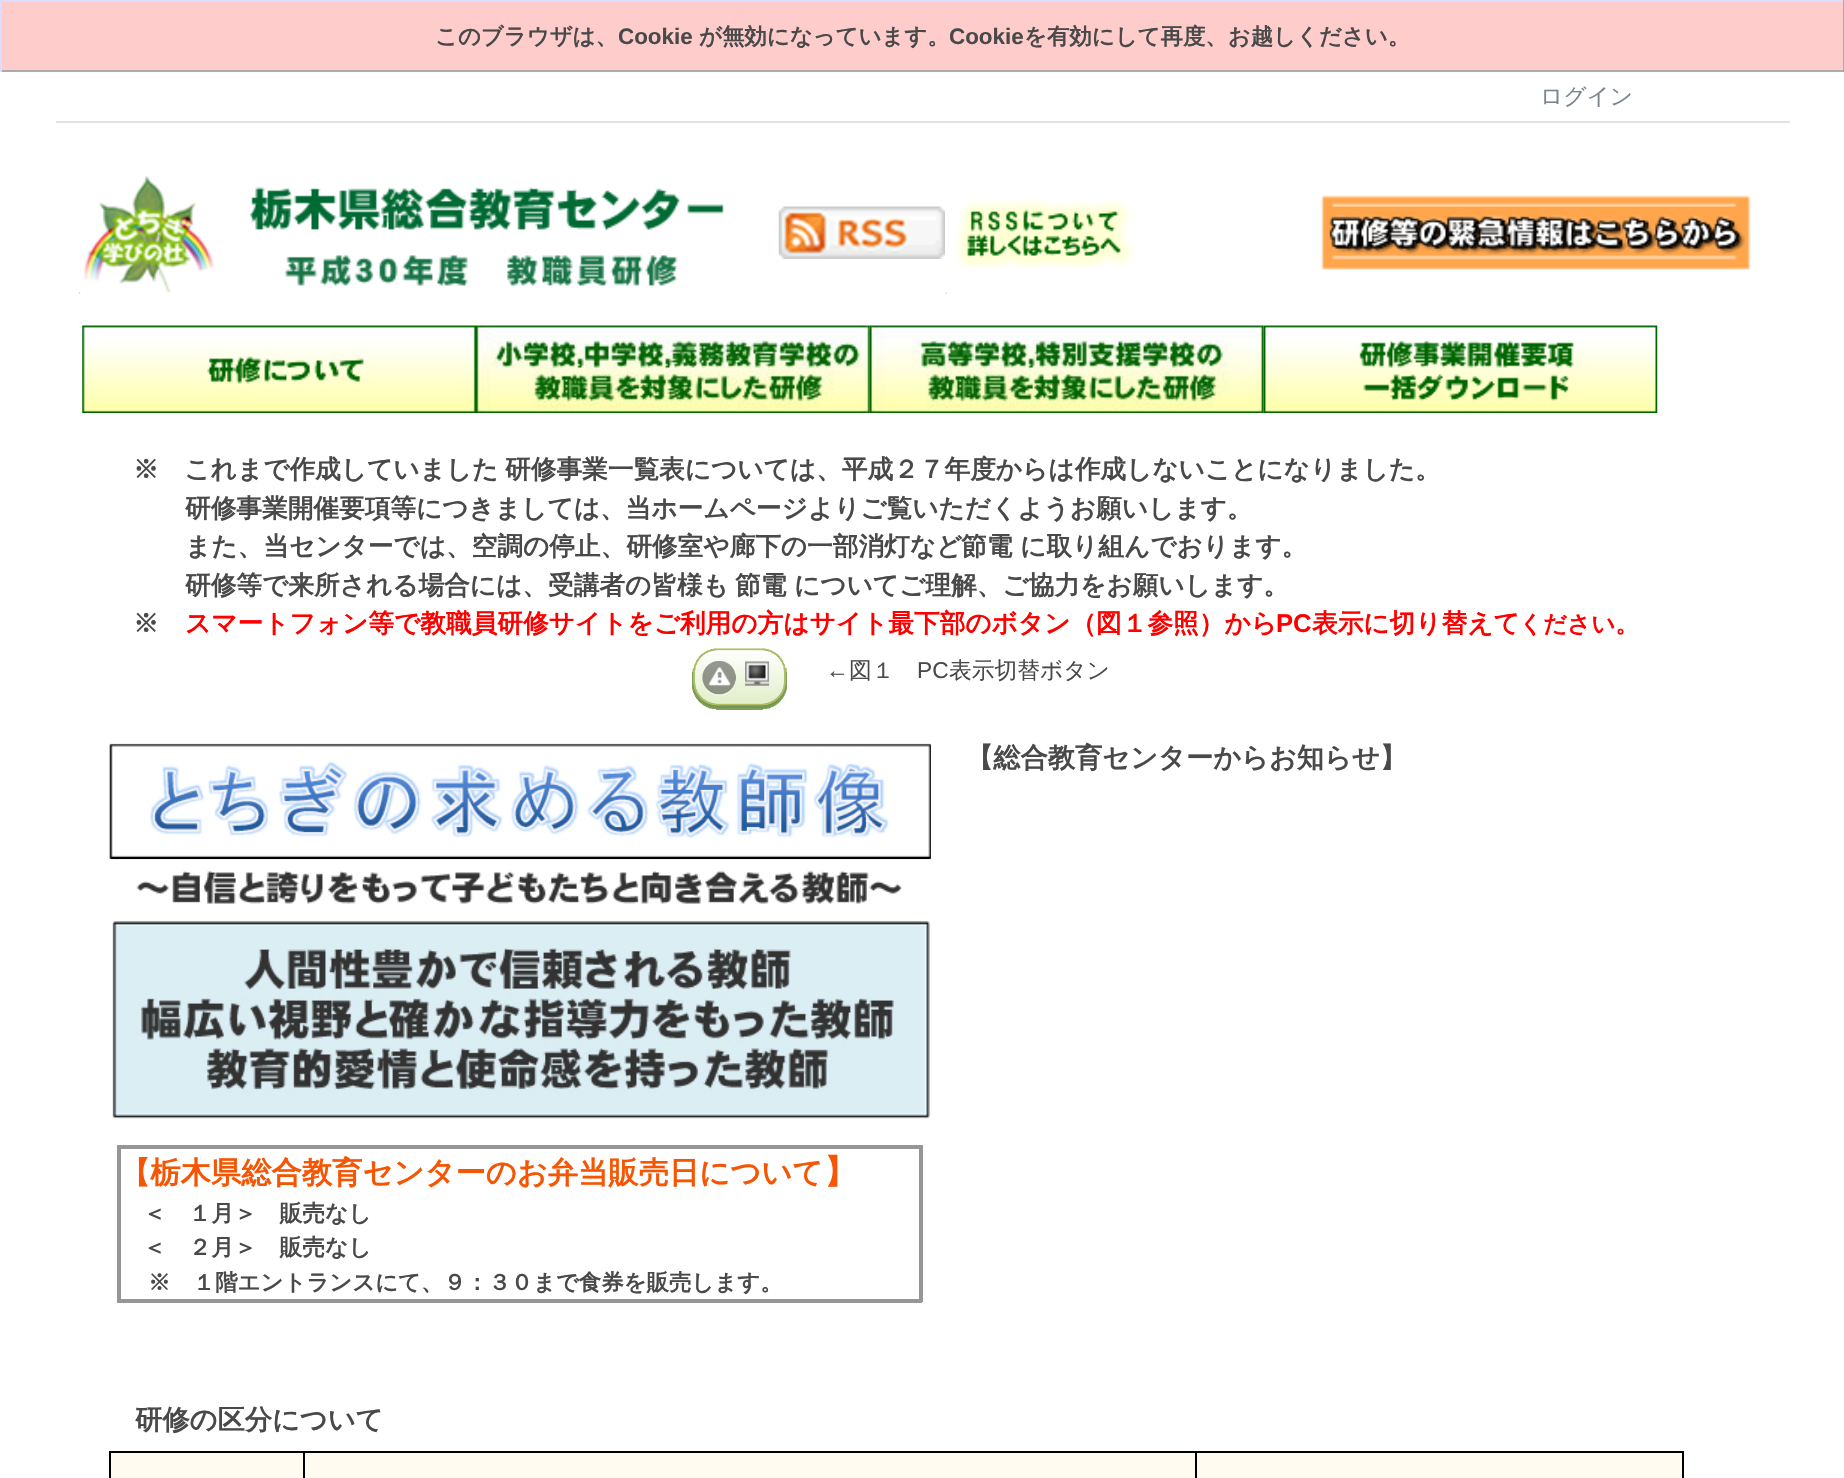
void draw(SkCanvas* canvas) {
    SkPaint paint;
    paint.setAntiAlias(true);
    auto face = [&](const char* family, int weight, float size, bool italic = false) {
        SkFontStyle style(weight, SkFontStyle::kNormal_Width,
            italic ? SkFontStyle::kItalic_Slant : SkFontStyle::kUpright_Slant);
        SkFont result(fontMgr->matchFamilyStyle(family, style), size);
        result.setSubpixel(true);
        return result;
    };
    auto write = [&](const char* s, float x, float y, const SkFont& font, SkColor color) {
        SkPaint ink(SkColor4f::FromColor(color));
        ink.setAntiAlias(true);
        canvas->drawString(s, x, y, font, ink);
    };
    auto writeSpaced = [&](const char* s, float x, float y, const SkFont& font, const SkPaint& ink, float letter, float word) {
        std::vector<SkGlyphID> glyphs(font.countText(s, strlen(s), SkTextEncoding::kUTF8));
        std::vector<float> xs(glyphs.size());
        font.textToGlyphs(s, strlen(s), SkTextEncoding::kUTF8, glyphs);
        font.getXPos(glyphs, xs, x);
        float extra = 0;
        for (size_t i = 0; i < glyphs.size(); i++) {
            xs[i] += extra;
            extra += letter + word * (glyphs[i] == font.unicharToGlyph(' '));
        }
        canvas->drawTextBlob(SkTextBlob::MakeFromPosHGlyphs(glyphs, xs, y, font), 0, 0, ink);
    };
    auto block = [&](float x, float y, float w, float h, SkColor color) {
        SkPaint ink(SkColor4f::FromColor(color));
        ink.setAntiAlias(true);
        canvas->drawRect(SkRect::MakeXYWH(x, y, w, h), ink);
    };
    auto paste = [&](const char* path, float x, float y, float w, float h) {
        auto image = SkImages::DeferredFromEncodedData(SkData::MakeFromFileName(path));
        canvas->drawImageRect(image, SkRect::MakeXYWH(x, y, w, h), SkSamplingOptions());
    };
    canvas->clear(SK_ColorWHITE);
    block(2, 2, 1841, 68, SkColorSetRGB(255, 204, 204));
    block(0, 0, 1844, 2, SkColorSetRGB(221, 221, 255));
    block(1843, 0, 1, 72, SkColorSetRGB(170, 170, 170));
    block(0, 70, 1844, 2, SkColorSetRGB(170, 170, 170));
    block(0, 0, 2, 72, SkColorSetRGB(221, 221, 255));
    auto kFont1 = face("WenQuanYi Zen Hei", 700, 22.4f);
    write("このブラウザは、", 435, 44, kFont1, SkColorSetRGB(73, 73, 73));
    auto kFont2 = face("Liberation Sans", 700, 22.4f);
    write("Cookie", 618, 44, kFont2, SkColorSetRGB(73, 73, 73));
    write("が無効になっています。", 699, 44, kFont1, SkColorSetRGB(73, 73, 73));
    write("Cookie", 949, 44, kFont2, SkColorSetRGB(73, 73, 73));
    write("を有効にして再度、お越しください。", 1024, 44, kFont1, SkColorSetRGB(73, 73, 73));
    block(56, 121, 1734, 2, SkColorSetRGB(223, 228, 231));
    auto kFont3 = face("WenQuanYi Zen Hei", 500, 22.75f);
    write("ログイン", 1540, 104, kFont3, SkColorSetRGB(122, 133, 143));
    paste("pic1.png", 78, 292, 3, 2);
    paste("pic2.png", 83, 175, 641, 118);
    paste("pic3.png", 778, 206, 167, 53);
    paste("pic4.png", 955, 198, 179, 70);
    paste("pic5.png", 945, 292, 2, 2);
    paste("pic6.png", 1321, 195, 430, 75);
    paste("pic7.png", 82, 325, 394, 88);
    paste("pic8.png", 476, 325, 394, 88);
    paste("pic9.png", 869, 325, 395, 88);
    paste("pic10.png", 1263, 325, 395, 88);
    auto kFont4 = face("WenQuanYi Zen Hei", 700, 25.67f);
    paint.setColor(SkColorSetRGB(73, 73, 73));
    writeSpaced("※　これまで作成していました 研修事業一覧表については、平成２７年度からは作成しないことになりました。", 133, 478, kFont4, paint, 0, -1);
    write("研修事業開催要項等につきましては、当ホームページよりご覧いただくようお願いします。", 185, 517, kFont4, SkColorSetRGB(73, 73, 73));
    write("また、当センターでは、空調の停止、研修室や廊下の一部消灯など", 185, 555, kFont4, SkColorSetRGB(73, 73, 73));
    write("節電", 961, 555, kFont4, SkColorSetRGB(73, 73, 73));
    write("に取り組んでおります。", 1020, 555, kFont4, SkColorSetRGB(73, 73, 73));
    write("研修等で来所される場合には、受講者の皆様も", 185, 594, kFont4, SkColorSetRGB(73, 73, 73));
    write("節電", 735, 594, kFont4, SkColorSetRGB(73, 73, 73));
    write("についてご理解、ご協力をお願いします。", 794, 594, kFont4, SkColorSetRGB(73, 73, 73));
    write("※", 133, 632, kFont4, SkColorSetRGB(73, 73, 73));
    write("スマートフォン等で教職員研修サイトをご利用の方はサイト最下部のボタン（図１参照）から", 185, 632, kFont4, SkColorSetRGB(255, 0, 0));
    auto kFont5 = face("Liberation Sans", 700, 25.67f);
    write("PC", 1276, 632, kFont5, SkColorSetRGB(255, 0, 0));
    write("表示に切り替えて", 1312, 632, kFont4, SkColorSetRGB(255, 0, 0));
    auto kFont6 = face("WenQuanYi Zen Hei", 700, 23.5f);
    write("ください。", 1519, 632, kFont6, SkColorSetRGB(255, 0, 0));
    paste("pic11.png", 692, 648, 95, 62);
    auto kFont7 = face("Liberation Sans", 400, 22.75f);
    write("←", 826, 678, kFont7, SkColorSetRGB(73, 73, 73));
    write("図１", 849, 678, kFont3, SkColorSetRGB(73, 73, 73));
    write("PC", 917, 678, kFont7, SkColorSetRGB(73, 73, 73));
    write("表示切替ボタン", 949, 678, kFont3, SkColorSetRGB(73, 73, 73));
    auto kFont8 = face("WenQuanYi Zen Hei", 700, 27.25f);
    write("【総合教育センターからお知らせ】", 966, 767, kFont8, SkColorSetRGB(73, 73, 73));
    paste("pic12.png", 109, 743, 822, 117);
    paste("pic13.png", 109, 859, 822, 45);
    paste("pic14.png", 112, 921, 818, 198);
    block(117, 1145, 805, 4, SkColorSetRGB(150, 150, 150));
    block(919, 1145, 4, 157, SkColorSetRGB(150, 150, 150));
    block(117, 1299, 805, 4, SkColorSetRGB(150, 150, 150));
    block(117, 1145, 4, 157, SkColorSetRGB(150, 150, 150));
    auto kFont9 = face("WenQuanYi Zen Hei", 700, 30.3f);
    write("【栃木県総合教育センターのお弁当販売日について", 120, 1183, kFont9, SkColorSetRGB(246, 86, 4));
    auto kFont10 = face("WenQuanYi Zen Hei", 700, 33);
    write("】", 824, 1183, kFont10, SkColorSetRGB(246, 86, 4));
    auto kFont11 = face("WenQuanYi Zen Hei", 700, 22.75f);
    write("＜　１月＞　販売なし", 143, 1221, kFont11, SkColorSetRGB(73, 73, 73));
    write("＜　２月＞　販売なし", 143, 1255, kFont11, SkColorSetRGB(73, 73, 73));
    write("※　１階エントランスにて、９：３０まで食券を販売します。", 148, 1290, kFont1, SkColorSetRGB(73, 73, 73));
    write("研修の区分について", 135, 1429, kFont8, SkColorSetRGB(73, 73, 73));
    block(111, 1453, 1571, 25, SkColorSetRGB(255, 251, 240));
    block(109, 1451, 1575, 2, SK_ColorBLACK);
    block(1682, 1451, 2, 27, SK_ColorBLACK);
    block(109, 1451, 2, 27, SK_ColorBLACK);
    block(303, 1451, 2, 27, SK_ColorBLACK);
    block(1195, 1451, 2, 27, SK_ColorBLACK);
}
